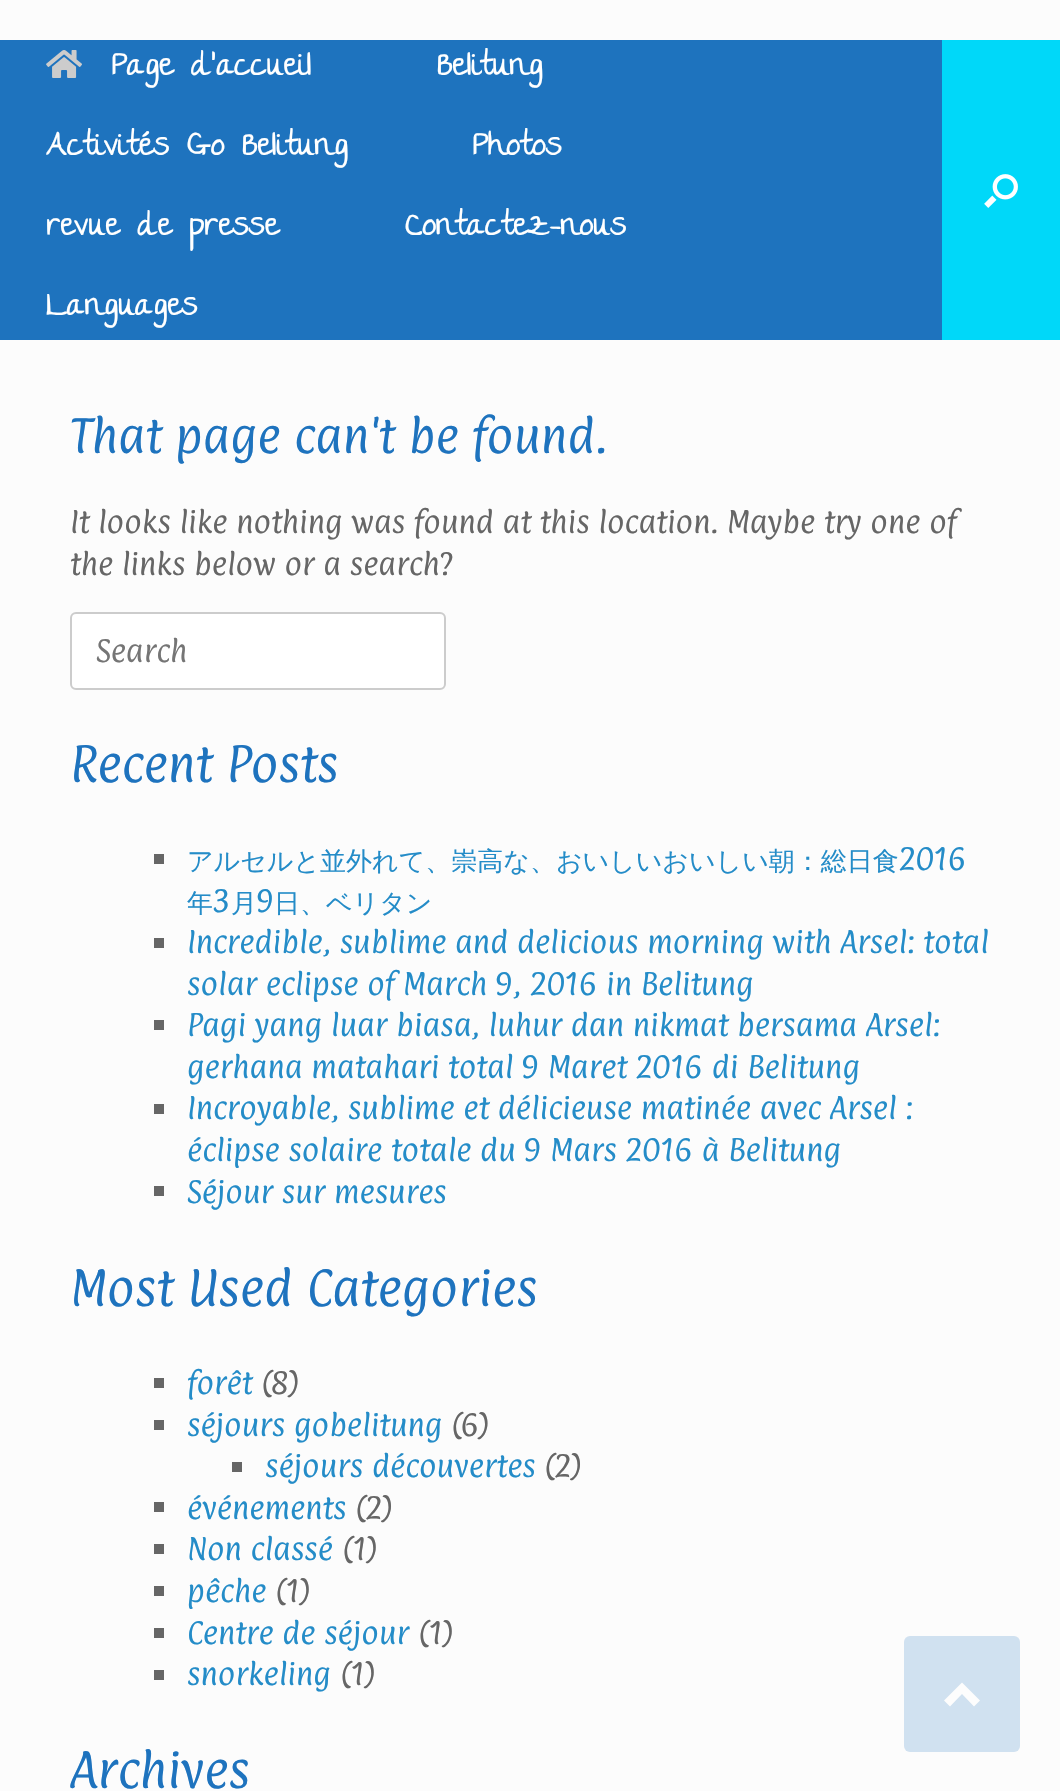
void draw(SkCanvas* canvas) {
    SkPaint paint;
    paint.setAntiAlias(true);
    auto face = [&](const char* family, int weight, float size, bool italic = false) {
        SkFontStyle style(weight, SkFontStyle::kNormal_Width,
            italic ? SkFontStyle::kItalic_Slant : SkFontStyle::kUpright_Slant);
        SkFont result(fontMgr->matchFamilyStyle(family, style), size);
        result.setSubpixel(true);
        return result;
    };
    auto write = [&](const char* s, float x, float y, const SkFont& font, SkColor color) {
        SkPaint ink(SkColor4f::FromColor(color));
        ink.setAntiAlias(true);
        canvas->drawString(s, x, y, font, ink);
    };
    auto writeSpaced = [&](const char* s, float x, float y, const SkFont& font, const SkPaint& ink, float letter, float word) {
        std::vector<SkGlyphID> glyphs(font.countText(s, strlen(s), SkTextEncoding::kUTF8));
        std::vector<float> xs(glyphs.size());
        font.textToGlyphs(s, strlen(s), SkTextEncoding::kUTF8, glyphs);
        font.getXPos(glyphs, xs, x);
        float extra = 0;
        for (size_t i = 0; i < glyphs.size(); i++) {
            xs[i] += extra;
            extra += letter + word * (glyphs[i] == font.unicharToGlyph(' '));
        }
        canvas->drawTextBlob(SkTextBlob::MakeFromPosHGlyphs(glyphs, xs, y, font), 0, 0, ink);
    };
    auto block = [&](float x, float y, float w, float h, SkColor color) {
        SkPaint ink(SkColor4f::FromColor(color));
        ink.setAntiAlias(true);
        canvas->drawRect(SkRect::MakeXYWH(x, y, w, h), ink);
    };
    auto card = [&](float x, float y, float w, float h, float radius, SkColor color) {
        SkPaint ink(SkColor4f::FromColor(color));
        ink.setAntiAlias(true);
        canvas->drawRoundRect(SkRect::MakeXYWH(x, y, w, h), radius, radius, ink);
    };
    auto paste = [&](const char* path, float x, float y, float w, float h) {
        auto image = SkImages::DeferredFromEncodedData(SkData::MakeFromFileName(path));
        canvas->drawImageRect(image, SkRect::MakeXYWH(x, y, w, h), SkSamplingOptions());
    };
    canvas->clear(SkColorSetRGB(252, 252, 252));
    block(0, 40, 942, 300, SkColorSetRGB(30, 115, 190));
    paste("pic1.png", 46, 50, 36, 28);
    auto kFont1 = face("The Girl Next Door", 700, 32);
    paint.setColor(SK_ColorWHITE);
    writeSpaced("Page d’accueil", 112, 75, kFont1, paint, 0, 2);
    write("Belitung", 437, 75, kFont1, SK_ColorWHITE);
    writeSpaced("Activités Go Belitung", 46, 155, kFont1, paint, 0, 2);
    write("Photos", 473, 155, kFont1, SK_ColorWHITE);
    writeSpaced("revue de presse", 46, 235, kFont1, paint, 0, 2);
    write("Contactez-nous", 405, 235, kFont1, SK_ColorWHITE);
    write("Languages", 46, 315, kFont1, SK_ColorWHITE);
    block(942, 40, 118, 300, SkColorSetRGB(0, 216, 249));
    paste("pic2.png", 984, 174, 34, 34);
    auto kFont2 = face("Paprika", 400, 40);
    write("That page can't be found.", 70, 453, kFont2, SkColorSetRGB(30, 115, 190));
    auto kFont3 = face("Paprika", 400, 26);
    write("It looks like nothing was found at this location. Maybe try one of", 70, 533, kFont3, SkColorSetRGB(102, 102, 102));
    write("the links below or a search?", 70, 575, kFont3, SkColorSetRGB(102, 102, 102));
    canvas->drawRoundRect(SkRect::MakeXYWH(71, 613, 374, 76), 5, 5, paint);
    paint.setStyle(SkPaint::kStroke_Style);
    paint.setStrokeWidth(2);
    paint.setColor(SkColorSetRGB(204, 204, 204));
    canvas->drawRoundRect(SkRect::MakeXYWH(71, 613, 374, 76), 5, 5, paint);
    write("Search", 96, 662, kFont3, SkColorSetRGB(117, 117, 117));
    auto kFont4 = face("Paprika", 400, 41.6f);
    write("Recent Posts", 70, 782, kFont4, SkColorSetRGB(30, 115, 190));
    block(154, 854, 10, 10, SkColorSetRGB(102, 102, 102));
    auto kFont5 = face("WenQuanYi Zen Hei", 500, 26);
    write("アルセルと並外れて、崇高な、おいしいおいしい朝：総日食", 187, 870, kFont5, SkColorSetRGB(36, 140, 200));
    write("2016", 899, 870, kFont3, SkColorSetRGB(36, 140, 200));
    write("年", 187, 912, kFont5, SkColorSetRGB(36, 140, 200));
    write("3", 213, 912, kFont3, SkColorSetRGB(36, 140, 200));
    write("月", 231, 912, kFont5, SkColorSetRGB(36, 140, 200));
    write("9", 257, 912, kFont3, SkColorSetRGB(36, 140, 200));
    write("日、ベリタン", 274, 912, kFont5, SkColorSetRGB(36, 140, 200));
    block(154, 938, 10, 10, SkColorSetRGB(102, 102, 102));
    write("Incredible, sublime and delicious morning with Arsel: total", 187, 953, kFont3, SkColorSetRGB(36, 140, 200));
    write("solar eclipse of March 9, 2016 in Belitung", 187, 995, kFont3, SkColorSetRGB(36, 140, 200));
    block(154, 1020, 10, 10, SkColorSetRGB(102, 102, 102));
    write("Pagi yang luar biasa, luhur dan nikmat bersama Arsel:", 187, 1036, kFont3, SkColorSetRGB(36, 140, 200));
    write("gerhana matahari total 9 Maret 2016 di Belitung", 187, 1078, kFont3, SkColorSetRGB(36, 140, 200));
    block(154, 1104, 10, 10, SkColorSetRGB(102, 102, 102));
    write("Incroyable, sublime et délicieuse matinée avec Arsel :", 187, 1119, kFont3, SkColorSetRGB(36, 140, 200));
    write("éclipse solaire totale du 9 Mars 2016 à Belitung", 187, 1161, kFont3, SkColorSetRGB(36, 140, 200));
    block(154, 1186, 10, 10, SkColorSetRGB(102, 102, 102));
    write("Séjour sur mesures", 187, 1203, kFont3, SkColorSetRGB(36, 140, 200));
    write("Most Used Categories", 70, 1306, kFont4, SkColorSetRGB(30, 115, 190));
    block(154, 1378, 10, 10, SkColorSetRGB(102, 102, 102));
    write("forêt", 187, 1394, kFont3, SkColorSetRGB(36, 140, 200));
    write("(8)", 261, 1394, kFont3, SkColorSetRGB(102, 102, 102));
    block(154, 1420, 10, 10, SkColorSetRGB(102, 102, 102));
    write("séjours gobelitung", 187, 1436, kFont3, SkColorSetRGB(36, 140, 200));
    write("(6)", 451, 1436, kFont3, SkColorSetRGB(102, 102, 102));
    block(232, 1462, 10, 10, SkColorSetRGB(102, 102, 102));
    write("séjours découvertes", 265, 1477, kFont3, SkColorSetRGB(36, 140, 200));
    write("(2)", 544, 1477, kFont3, SkColorSetRGB(102, 102, 102));
    block(154, 1502, 10, 10, SkColorSetRGB(102, 102, 102));
    write("événements", 187, 1519, kFont3, SkColorSetRGB(36, 140, 200));
    write("(2)", 355, 1519, kFont3, SkColorSetRGB(102, 102, 102));
    block(154, 1544, 10, 10, SkColorSetRGB(102, 102, 102));
    write("Non classé", 187, 1560, kFont3, SkColorSetRGB(36, 140, 200));
    write("(1)", 342, 1560, kFont3, SkColorSetRGB(102, 102, 102));
    block(154, 1586, 10, 10, SkColorSetRGB(102, 102, 102));
    write("pêche", 187, 1602, kFont3, SkColorSetRGB(36, 140, 200));
    write("(1)", 275, 1602, kFont3, SkColorSetRGB(102, 102, 102));
    block(154, 1628, 10, 10, SkColorSetRGB(102, 102, 102));
    write("Centre de séjour", 187, 1644, kFont3, SkColorSetRGB(36, 140, 200));
    write("(1)", 418, 1644, kFont3, SkColorSetRGB(102, 102, 102));
    block(154, 1670, 10, 10, SkColorSetRGB(102, 102, 102));
    write("snorkeling", 187, 1685, kFont3, SkColorSetRGB(36, 140, 200));
    write("(1)", 340, 1685, kFont3, SkColorSetRGB(102, 102, 102));
    write("Archives", 70, 1788, kFont4, SkColorSetRGB(30, 115, 190));
    card(904, 1636, 116, 116, 6, SkColorSetRGB(208, 225, 240));
    paint.setStyle(SkPaint::kFill_Style);
    paint.setColor(SkColorSetRGB(253, 253, 253));
    canvas->drawPath(SkPathBuilder().moveTo(980, 1700.5f).lineTo(962, 1682.5f).lineTo(944, 1700.5f).lineTo(950, 1706.5f).lineTo(962, 1694).lineTo(974, 1706.5f).close().detach(), paint);
}
